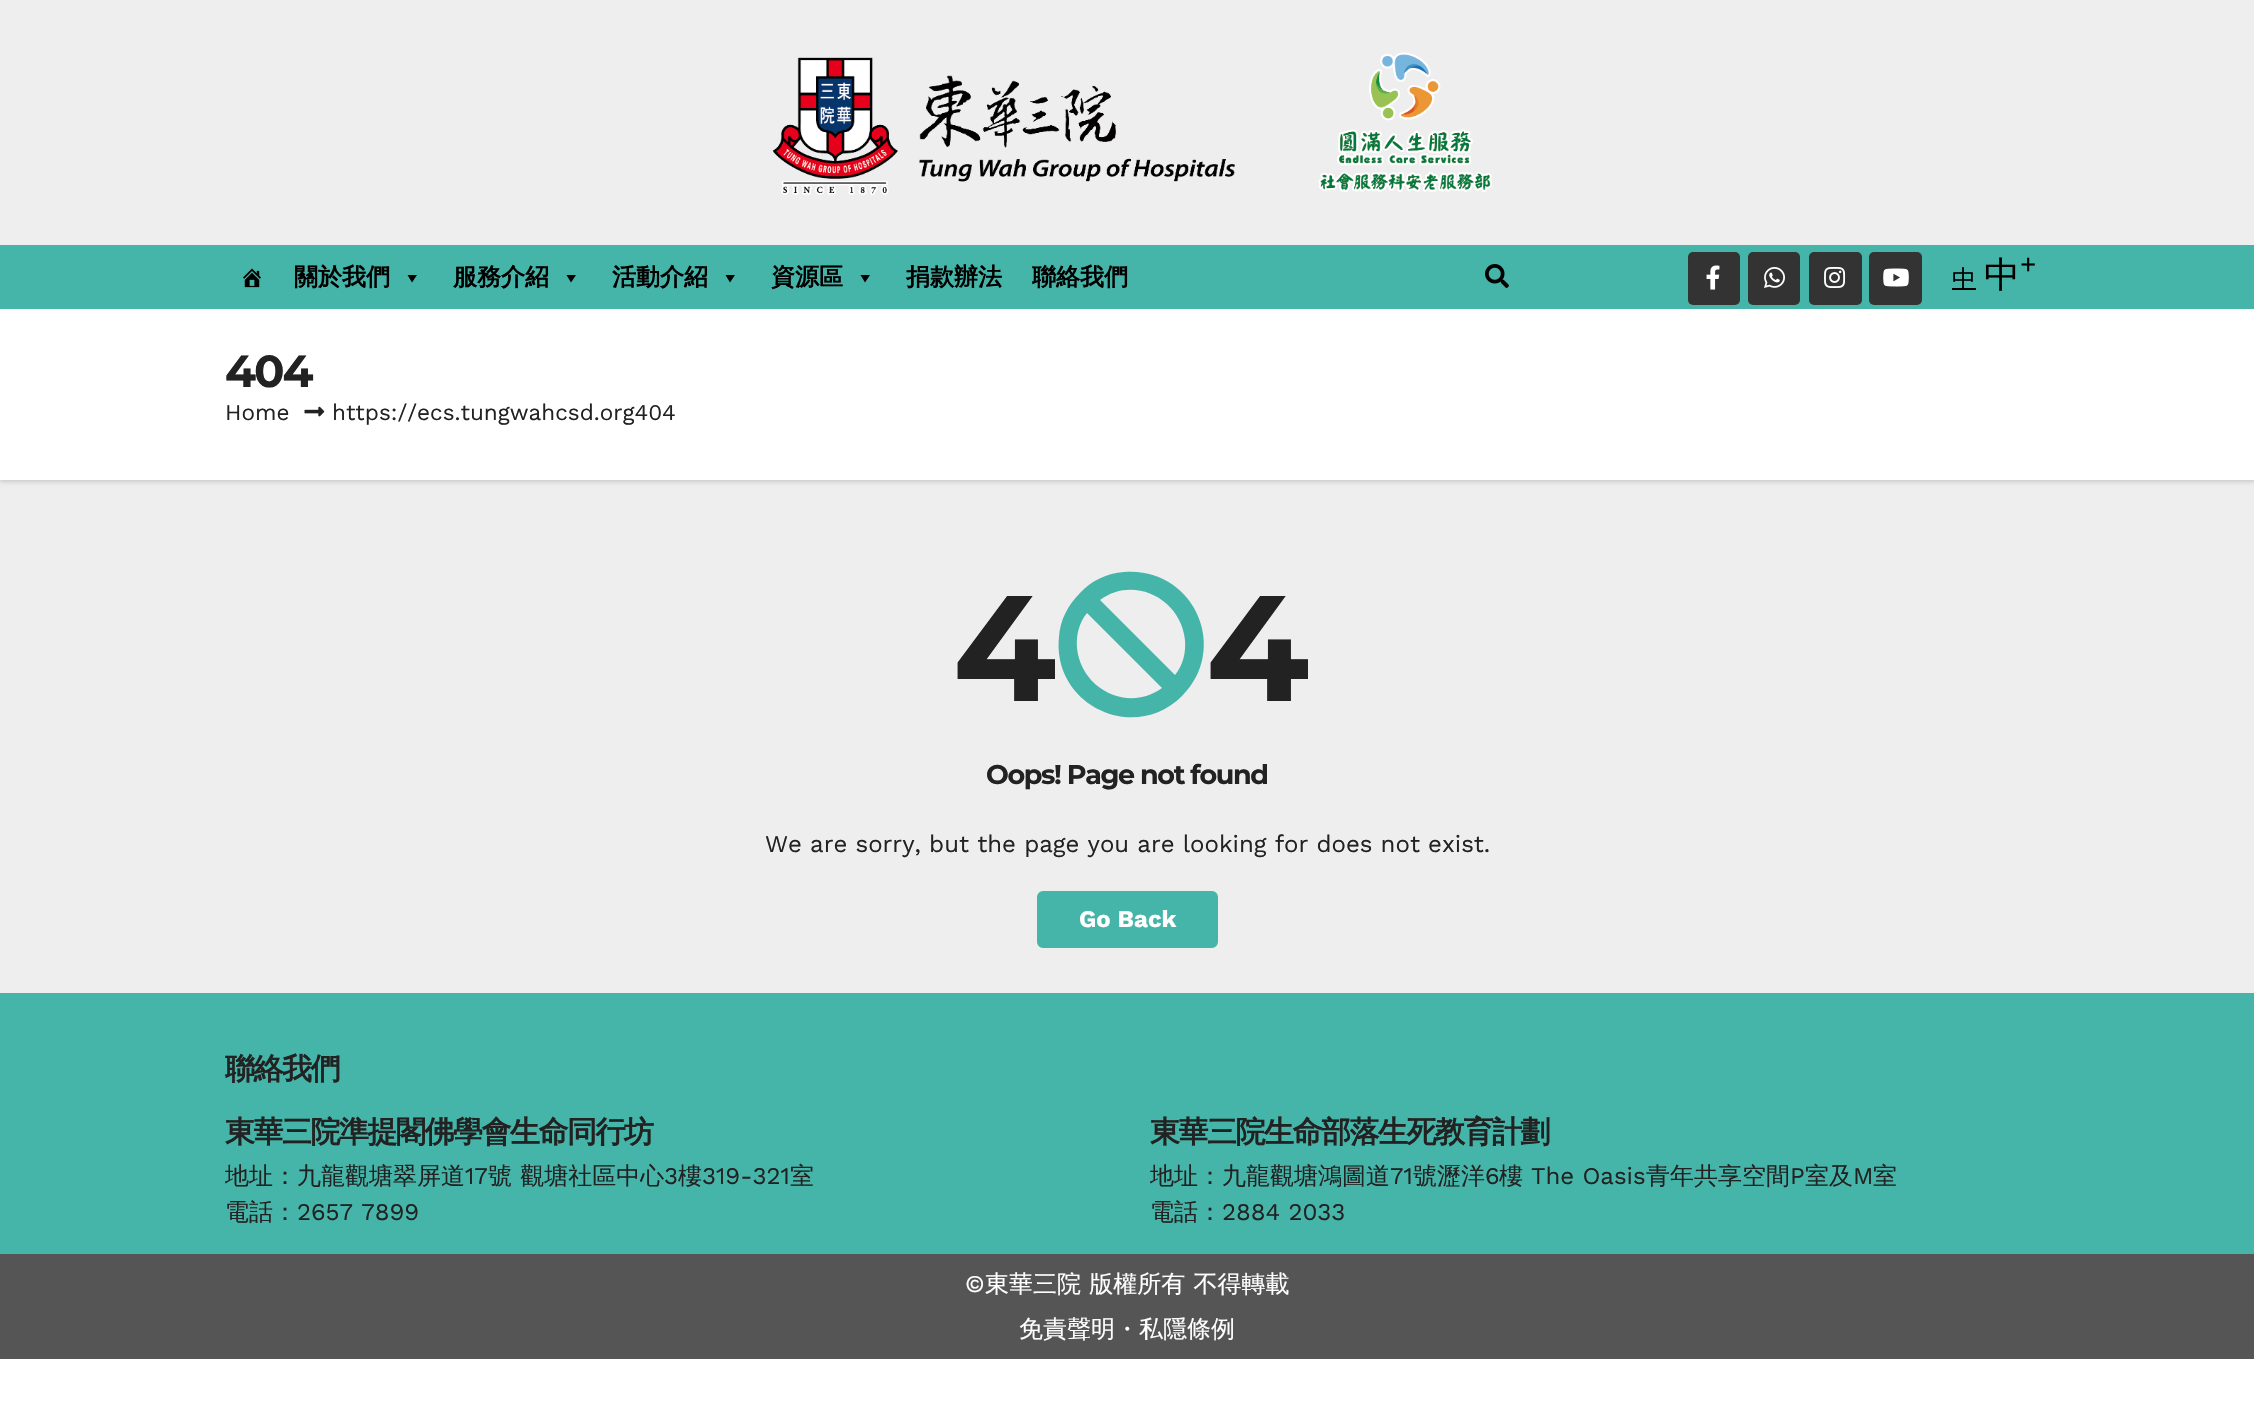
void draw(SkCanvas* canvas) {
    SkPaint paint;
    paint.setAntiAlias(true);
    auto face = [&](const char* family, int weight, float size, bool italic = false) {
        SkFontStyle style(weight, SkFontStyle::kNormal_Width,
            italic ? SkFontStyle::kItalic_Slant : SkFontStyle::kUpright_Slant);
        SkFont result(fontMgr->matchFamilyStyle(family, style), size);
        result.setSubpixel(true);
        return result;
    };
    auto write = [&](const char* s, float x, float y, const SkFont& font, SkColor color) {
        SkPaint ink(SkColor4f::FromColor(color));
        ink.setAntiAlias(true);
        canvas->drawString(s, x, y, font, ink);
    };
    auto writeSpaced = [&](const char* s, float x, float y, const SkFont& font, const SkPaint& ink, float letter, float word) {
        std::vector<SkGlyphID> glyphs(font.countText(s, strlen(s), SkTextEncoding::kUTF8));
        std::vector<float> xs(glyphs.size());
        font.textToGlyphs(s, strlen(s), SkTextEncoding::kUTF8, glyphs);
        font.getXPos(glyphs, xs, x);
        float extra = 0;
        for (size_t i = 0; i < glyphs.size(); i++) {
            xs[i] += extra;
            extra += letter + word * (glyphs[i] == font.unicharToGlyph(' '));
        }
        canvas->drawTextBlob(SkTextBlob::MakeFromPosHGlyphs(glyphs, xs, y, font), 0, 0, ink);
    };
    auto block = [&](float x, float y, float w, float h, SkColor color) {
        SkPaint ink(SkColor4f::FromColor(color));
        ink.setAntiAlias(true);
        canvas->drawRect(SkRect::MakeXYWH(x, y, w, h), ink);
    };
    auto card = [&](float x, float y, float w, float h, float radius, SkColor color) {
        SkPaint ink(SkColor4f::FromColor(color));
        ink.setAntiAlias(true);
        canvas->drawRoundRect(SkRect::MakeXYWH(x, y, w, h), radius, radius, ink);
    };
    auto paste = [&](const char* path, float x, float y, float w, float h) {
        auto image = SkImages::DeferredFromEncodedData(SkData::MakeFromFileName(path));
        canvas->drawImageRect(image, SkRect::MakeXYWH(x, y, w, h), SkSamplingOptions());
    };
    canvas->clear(SK_ColorWHITE);
    block(0, 0, 2254, 993, SkColorSetRGB(238, 238, 238));
    paste("pic1.png", 772, 52, 720, 143);
    paint.setColor(SkColorSetARGB(38, 0, 0, 0));
    paint.setMaskFilter(SkMaskFilter::MakeBlur(kNormal_SkBlurStyle, 2));
    canvas->drawRect(SkRect::MakeXYWH(0, 311, 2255, 171), paint);
    paint.setMaskFilter(nullptr);
    block(0, 245, 2254, 64, SkColorSetRGB(69, 181, 169));
    paste("pic2.png", 243, 268, 18, 20);
    auto kFont1 = face("WenQuanYi Zen Hei", 700, 24);
    write("關於我們", 294, 285, kFont1, SK_ColorBLACK);
    paint.setColor(SK_ColorBLACK);
    canvas->drawPath(SkPathBuilder().moveTo(417, 275).lineTo(412, 282.5f).lineTo(407.5f, 275).close().detach(), paint);
    write("服務介紹", 453, 285, kFont1, SK_ColorBLACK);
    canvas->drawPath(SkPathBuilder().moveTo(576, 275).lineTo(571, 282.5f).lineTo(566.5f, 275).close().detach(), paint);
    write("活動介紹", 612, 285, kFont1, SK_ColorBLACK);
    canvas->drawPath(SkPathBuilder().moveTo(735, 275).lineTo(730, 282.5f).lineTo(725.5f, 275).close().detach(), paint);
    write("資源區", 771, 285, kFont1, SK_ColorBLACK);
    canvas->drawPath(SkPathBuilder().moveTo(870, 275).lineTo(865, 282.5f).lineTo(860.5f, 275).close().detach(), paint);
    write("捐款辦法", 906, 285, kFont1, SK_ColorBLACK);
    write("聯絡我們", 1032, 285, kFont1, SK_ColorBLACK);
    paste("pic3.png", 1485, 264, 24, 24);
    card(1688, 252, 52, 53, 5, SkColorSetRGB(51, 51, 51));
    paste("pic4.png", 1706, 265, 14, 25);
    card(1748, 252, 52, 53, 5, SkColorSetRGB(51, 51, 51));
    paste("pic5.png", 1764, 267, 21, 21);
    card(1809, 252, 53, 53, 5, SkColorSetRGB(51, 51, 51));
    paste("pic6.png", 1824, 267, 22, 21);
    card(1869, 252, 53, 53, 5, SkColorSetRGB(51, 51, 51));
    paste("pic7.png", 1883, 268, 26, 19);
    auto kFont2 = face("WenQuanYi Zen Hei", 500, 36);
    write("中", 1984, 287, kFont2, SK_ColorBLACK);
    auto kFont3 = face("Work Sans", 400, 27);
    write("+", 2020, 273, kFont3, SK_ColorBLACK);
    block(1952, 288, 24, 2, SK_ColorBLACK);
    auto kFont4 = face("WenQuanYi Zen Hei", 500, 24);
    write("中", 1952, 287, kFont4, SK_ColorBLACK);
    block(0, 309, 2254, 171, SK_ColorWHITE);
    auto kFont5 = face("Montserrat", 700, 45);
    paint.setColor(SkColorSetRGB(34, 34, 34));
    writeSpaced("404", 225, 387, kFont5, paint, -2, 0);
    auto kFont6 = face("Work Sans", 400, 22.5f);
    write("Home", 225, 420, kFont6, SkColorSetRGB(34, 34, 34));
    paste("pic8.png", 304, 406, 21, 11);
    write("https://ecs.tungwahcsd.org404", 332, 420, kFont6, SkColorSetRGB(34, 34, 34));
    auto kFont7 = face("Montserrat", 700, 150);
    writeSpaced("4", 953, 701, kFont7, paint, -8, 0);
    paint.setColor(SkColorSetRGB(69, 181, 169));
    canvas->drawPath(SkPathBuilder().moveTo(1080, 593).cubicTo(1091, 581, 1107, 573, 1124, 572).cubicTo(1192, 566, 1231, 647, 1182, 696).cubicTo(1134, 744, 1052, 705, 1059, 637).cubicTo(1060, 620, 1068, 605, 1080, 593).close().moveTo(1185, 640).cubicTo(1181, 599, 1134, 575, 1100, 600).lineTo(1175, 675).cubicTo(1183, 665, 1186, 653, 1185, 640).close().moveTo(1077, 648).cubicTo(1081, 689, 1128, 713, 1162, 688).lineTo(1087, 613).cubicTo(1079, 623, 1076, 635, 1077, 648).close().detach(), paint);
    paint.setColor(SkColorSetRGB(34, 34, 34));
    writeSpaced("4", 1206, 701, kFont7, paint, -8, 0);
    auto kFont8 = face("Montserrat", 700, 27);
    writeSpaced("Oops! Page not found", 986, 784, kFont8, paint, -1.35f, 0);
    auto kFont9 = face("Work Sans", 400, 24);
    write("We are sorry, but the page you are looking for does not exist.", 765, 852, kFont9, SkColorSetRGB(34, 34, 34));
    paint.setColor(SkColorSetRGB(69, 181, 169));
    canvas->drawRoundRect(SkRect::MakeXYWH(1038.5f, 892.5f, 178, 54), 4.5f, 4.5f, paint);
    paint.setStyle(SkPaint::kStroke_Style);
    paint.setStrokeWidth(3);
    canvas->drawRoundRect(SkRect::MakeXYWH(1038.5f, 892.5f, 178, 54), 4.5f, 4.5f, paint);
    auto kFont10 = face("Work Sans", 700, 24);
    write("Go Back", 1079, 927, kFont10, SK_ColorWHITE);
    block(0, 993, 2254, 261, SkColorSetRGB(69, 181, 169));
    auto kFont11 = face("WenQuanYi Zen Hei", 700, 30);
    paint.setStyle(SkPaint::kFill_Style);
    paint.setColor(SkColorSetRGB(34, 34, 34));
    writeSpaced("聯絡我們", 225, 1079, kFont11, paint, -1.5f, 0);
    writeSpaced("東華三院準提閣佛學會生命同行坊", 225, 1142, kFont11, paint, -1.5f, 0);
    write("地址：九龍觀塘翠屏道", 225, 1184, kFont4, SkColorSetRGB(34, 34, 34));
    write("17", 465, 1184, kFont9, SkColorSetRGB(34, 34, 34));
    writeSpaced("號 觀塘社區中心", 488, 1184, kFont4, paint, 0, 1);
    write("3", 664, 1184, kFont9, SkColorSetRGB(34, 34, 34));
    write("樓", 678, 1184, kFont4, SkColorSetRGB(34, 34, 34));
    write("319-321", 702, 1184, kFont9, SkColorSetRGB(34, 34, 34));
    write("室", 790, 1184, kFont4, SkColorSetRGB(34, 34, 34));
    write("電話：", 225, 1220, kFont4, SkColorSetRGB(34, 34, 34));
    write("2657 7899", 297, 1220, kFont9, SkColorSetRGB(34, 34, 34));
    writeSpaced("東華三院生命部落生死教育計劃", 1150, 1142, kFont11, paint, -1.5f, 0);
    write("地址：九龍觀塘鴻圖道", 1150, 1184, kFont4, SkColorSetRGB(34, 34, 34));
    write("71", 1390, 1184, kFont9, SkColorSetRGB(34, 34, 34));
    write("號瀝洋", 1413, 1184, kFont4, SkColorSetRGB(34, 34, 34));
    write("6", 1485, 1184, kFont9, SkColorSetRGB(34, 34, 34));
    write("樓", 1499, 1184, kFont4, SkColorSetRGB(34, 34, 34));
    write("The Oasis", 1531, 1184, kFont9, SkColorSetRGB(34, 34, 34));
    write("青年共享空間", 1646, 1184, kFont4, SkColorSetRGB(34, 34, 34));
    write("P", 1790, 1184, kFont9, SkColorSetRGB(34, 34, 34));
    write("室及", 1805, 1184, kFont4, SkColorSetRGB(34, 34, 34));
    write("M", 1853, 1184, kFont9, SkColorSetRGB(34, 34, 34));
    write("室", 1873, 1184, kFont4, SkColorSetRGB(34, 34, 34));
    write("電話：", 1150, 1220, kFont4, SkColorSetRGB(34, 34, 34));
    write("2884 2033", 1222, 1220, kFont9, SkColorSetRGB(34, 34, 34));
    block(0, 1254, 2254, 105, SkColorSetRGB(85, 85, 85));
    write("©", 965, 1292, kFont9, SK_ColorWHITE);
    paint.setColor(SK_ColorWHITE);
    writeSpaced("東華三院 版權所有 不得轉載", 985, 1292, kFont4, paint, 0, 1);
    write("免責聲明・私隱條例", 1019, 1337, kFont4, SK_ColorWHITE);
}
